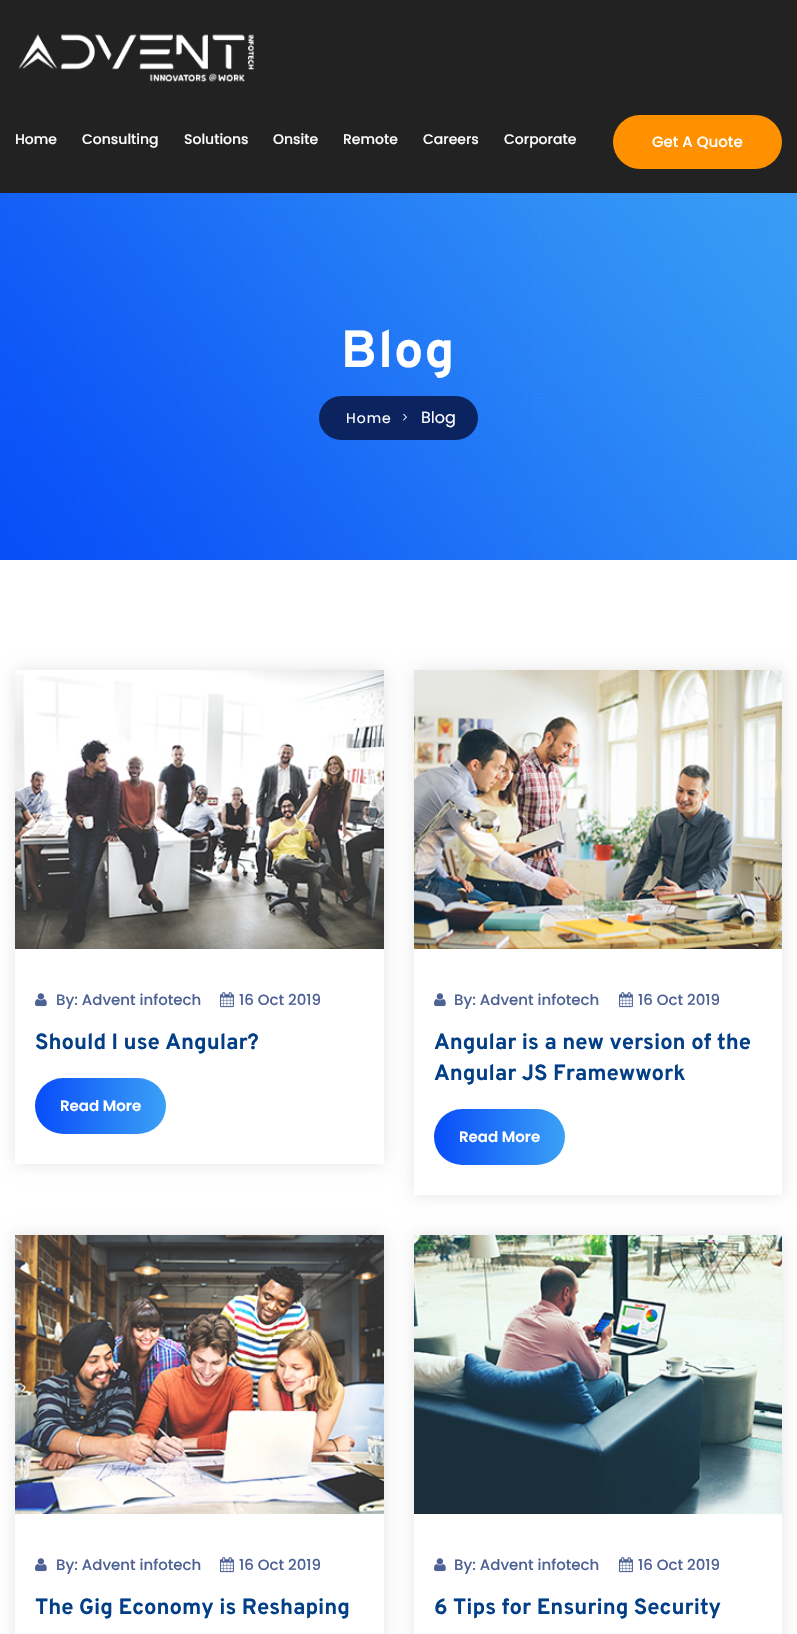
void draw(SkCanvas* canvas) {
    SkPaint paint;
    paint.setAntiAlias(true);
    auto face = [&](const char* family, int weight, float size, bool italic = false) {
        SkFontStyle style(weight, SkFontStyle::kNormal_Width,
            italic ? SkFontStyle::kItalic_Slant : SkFontStyle::kUpright_Slant);
        SkFont result(fontMgr->matchFamilyStyle(family, style), size);
        result.setSubpixel(true);
        return result;
    };
    auto write = [&](const char* s, float x, float y, const SkFont& font, SkColor color) {
        SkPaint ink(SkColor4f::FromColor(color));
        ink.setAntiAlias(true);
        canvas->drawString(s, x, y, font, ink);
    };
    auto writeSpaced = [&](const char* s, float x, float y, const SkFont& font, const SkPaint& ink, float letter, float word) {
        std::vector<SkGlyphID> glyphs(font.countText(s, strlen(s), SkTextEncoding::kUTF8));
        std::vector<float> xs(glyphs.size());
        font.textToGlyphs(s, strlen(s), SkTextEncoding::kUTF8, glyphs);
        font.getXPos(glyphs, xs, x);
        float extra = 0;
        for (size_t i = 0; i < glyphs.size(); i++) {
            xs[i] += extra;
            extra += letter + word * (glyphs[i] == font.unicharToGlyph(' '));
        }
        canvas->drawTextBlob(SkTextBlob::MakeFromPosHGlyphs(glyphs, xs, y, font), 0, 0, ink);
    };
    auto block = [&](float x, float y, float w, float h, SkColor color) {
        SkPaint ink(SkColor4f::FromColor(color));
        ink.setAntiAlias(true);
        canvas->drawRect(SkRect::MakeXYWH(x, y, w, h), ink);
    };
    auto card = [&](float x, float y, float w, float h, float radius, SkColor color) {
        SkPaint ink(SkColor4f::FromColor(color));
        ink.setAntiAlias(true);
        canvas->drawRoundRect(SkRect::MakeXYWH(x, y, w, h), radius, radius, ink);
    };
    auto paste = [&](const char* path, float x, float y, float w, float h) {
        auto image = SkImages::DeferredFromEncodedData(SkData::MakeFromFileName(path));
        canvas->drawImageRect(image, SkRect::MakeXYWH(x, y, w, h), SkSamplingOptions());
    };
    canvas->clear(SK_ColorWHITE);
    block(0, 0, 797, 193, SkColorSetRGB(34, 34, 34));
    paste("pic1.png", 18, 34, 236, 48);
    auto kFont1 = face("Poppins", 500, 14);
    write("Home", 15, 144, kFont1, SK_ColorWHITE);
    write("Consulting", 82, 144, kFont1, SK_ColorWHITE);
    write("Solutions", 184, 144, kFont1, SK_ColorWHITE);
    write("Onsite", 273, 144, kFont1, SK_ColorWHITE);
    write("Remote", 343, 144, kFont1, SK_ColorWHITE);
    write("Careers", 423, 144, kFont1, SK_ColorWHITE);
    write("Corporate", 504, 144, kFont1, SK_ColorWHITE);
    card(613, 115, 169, 54, 27, SkColorSetRGB(255, 145, 0));
    auto kFont2 = face("Poppins", 500, 15);
    write("Get A Quote", 652, 147, kFont2, SK_ColorWHITE);
    paste("pic2.png", 0, 193, 797, 367);
    auto kFont3 = face("Overpass", 700, 52);
    paint.setColor(SK_ColorWHITE);
    writeSpaced("Blog", 341, 367, kFont3, paint, 1, 0);
    card(319, 396, 159, 44, 22, SkColorSetRGB(11, 36, 96));
    auto kFont4 = face("Poppins", 400, 14);
    writeSpaced("Home", 346, 423, kFont4, paint, 1, 0);
    paste("pic3.png", 403, 413, 4, 8);
    auto kFont5 = face("Poppins", 400, 16);
    write("Blog", 421, 423, kFont5, SK_ColorWHITE);
    canvas->save();
    canvas->clipPath(SkPathBuilder(SkPathFillType::kEvenOdd).moveTo(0, 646).lineTo(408, 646).lineTo(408, 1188).lineTo(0, 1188).close().moveTo(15, 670).lineTo(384, 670).lineTo(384, 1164).lineTo(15, 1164).close().detach(), true);
    paint.setColor(SkColorSetARGB(26, 0, 0, 0));
    paint.setMaskFilter(SkMaskFilter::MakeBlur(kNormal_SkBlurStyle, 7.5f));
    canvas->drawRect(SkRect::MakeXYWH(15, 670, 369, 494), paint);
    paint.setMaskFilter(nullptr);
    canvas->restore();
    paste("pic4.png", 15, 670, 369, 279);
    paste("pic5.png", 35, 993, 12, 14);
    write("By: Advent infotech", 56, 1005, kFont2, SkColorSetRGB(77, 97, 149));
    paste("pic6.png", 220, 992, 14, 16);
    write("16 Oct 2019", 239, 1005, kFont2, SkColorSetRGB(77, 97, 149));
    auto kFont6 = face("Overpass", 700, 22);
    write("Should I use Angular?", 35, 1049, kFont6, SkColorSetRGB(2, 63, 135));
    {
        const SkColor colors[] = {SkColorSetRGB(8, 76, 249), SkColorSetRGB(59, 161, 247)};
        const float stops[] = {0, 1};
        const SkPoint ends[] = {{35, 1106}, {166, 1106}};
        paint.setShader(SkGradientShader::MakeLinear(ends, colors, stops, 2, SkTileMode::kClamp));
        paint.setAlpha(255);
    }
    canvas->drawRoundRect(SkRect::MakeXYWH(35, 1078, 131, 56), 28, 28, paint);
    auto kFont7 = face("Poppins", 600, 15);
    write("Read More", 60, 1111, kFont7, SK_ColorWHITE);
    canvas->save();
    canvas->clipPath(SkPathBuilder(SkPathFillType::kEvenOdd).moveTo(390, 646).lineTo(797, 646).lineTo(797, 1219).lineTo(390, 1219).close().moveTo(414, 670).lineTo(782, 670).lineTo(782, 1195).lineTo(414, 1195).close().detach(), true);
    paint.setShader(nullptr);
    paint.setColor(SkColorSetARGB(26, 0, 0, 0));
    paint.setMaskFilter(SkMaskFilter::MakeBlur(kNormal_SkBlurStyle, 7.5f));
    canvas->drawRect(SkRect::MakeXYWH(414, 670, 368, 525), paint);
    paint.setMaskFilter(nullptr);
    canvas->restore();
    paste("pic7.png", 414, 670, 368, 279);
    paste("pic5.png", 434, 993, 12, 14);
    write("By: Advent infotech", 454, 1005, kFont2, SkColorSetRGB(77, 97, 149));
    paste("pic6.png", 619, 992, 14, 16);
    write("16 Oct 2019", 638, 1005, kFont2, SkColorSetRGB(77, 97, 149));
    write("Angular is a new version of the", 434, 1049, kFont6, SkColorSetRGB(2, 63, 135));
    write("Angular JS Framewwork", 434, 1080, kFont6, SkColorSetRGB(2, 63, 135));
    {
        const SkColor colors[] = {SkColorSetRGB(8, 76, 249), SkColorSetRGB(59, 161, 247)};
        const float stops[] = {0, 1};
        const SkPoint ends[] = {{434, 1137}, {565, 1137}};
        paint.setShader(SkGradientShader::MakeLinear(ends, colors, stops, 2, SkTileMode::kClamp));
        paint.setAlpha(255);
    }
    canvas->drawRoundRect(SkRect::MakeXYWH(434, 1109, 131, 56), 28, 28, paint);
    write("Read More", 459, 1142, kFont7, SK_ColorWHITE);
    canvas->save();
    canvas->clipPath(SkPathBuilder(SkPathFillType::kEvenOdd).moveTo(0, 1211).lineTo(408, 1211).lineTo(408, 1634).lineTo(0, 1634).close().moveTo(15, 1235).lineTo(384, 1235).lineTo(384, 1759).lineTo(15, 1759).close().detach(), true);
    paint.setShader(nullptr);
    paint.setColor(SkColorSetARGB(26, 0, 0, 0));
    paint.setMaskFilter(SkMaskFilter::MakeBlur(kNormal_SkBlurStyle, 7.5f));
    canvas->drawRect(SkRect::MakeXYWH(15, 1235, 369, 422), paint);
    paint.setMaskFilter(nullptr);
    canvas->restore();
    paste("pic8.png", 15, 1235, 369, 279);
    paste("pic5.png", 35, 1558, 12, 14);
    write("By: Advent infotech", 56, 1570, kFont2, SkColorSetRGB(77, 97, 149));
    paste("pic6.png", 220, 1557, 14, 16);
    write("16 Oct 2019", 239, 1570, kFont2, SkColorSetRGB(77, 97, 149));
    write("The Gig Economy is Reshaping", 35, 1614, kFont6, SkColorSetRGB(2, 63, 135));
    canvas->save();
    canvas->clipPath(SkPathBuilder(SkPathFillType::kEvenOdd).moveTo(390, 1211).lineTo(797, 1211).lineTo(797, 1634).lineTo(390, 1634).close().moveTo(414, 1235).lineTo(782, 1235).lineTo(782, 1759).lineTo(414, 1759).close().detach(), true);
    paint.setMaskFilter(SkMaskFilter::MakeBlur(kNormal_SkBlurStyle, 7.5f));
    canvas->drawRect(SkRect::MakeXYWH(414, 1235, 368, 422), paint);
    paint.setMaskFilter(nullptr);
    canvas->restore();
    paste("pic9.png", 414, 1235, 368, 279);
    paste("pic5.png", 434, 1558, 12, 14);
    write("By: Advent infotech", 454, 1570, kFont2, SkColorSetRGB(77, 97, 149));
    paste("pic6.png", 619, 1557, 14, 16);
    write("16 Oct 2019", 638, 1570, kFont2, SkColorSetRGB(77, 97, 149));
    write("6 Tips for Ensuring Security", 434, 1614, kFont6, SkColorSetRGB(2, 63, 135));
}
